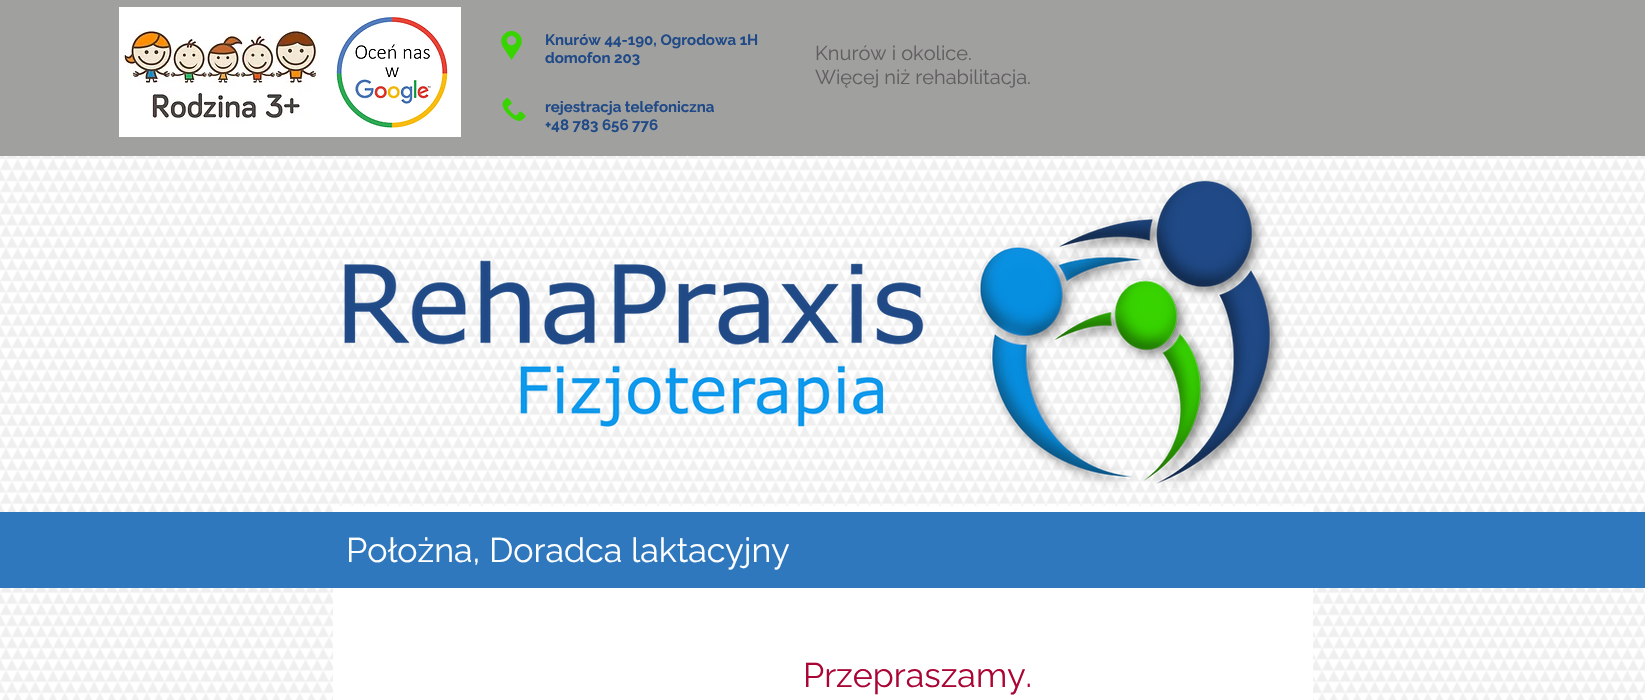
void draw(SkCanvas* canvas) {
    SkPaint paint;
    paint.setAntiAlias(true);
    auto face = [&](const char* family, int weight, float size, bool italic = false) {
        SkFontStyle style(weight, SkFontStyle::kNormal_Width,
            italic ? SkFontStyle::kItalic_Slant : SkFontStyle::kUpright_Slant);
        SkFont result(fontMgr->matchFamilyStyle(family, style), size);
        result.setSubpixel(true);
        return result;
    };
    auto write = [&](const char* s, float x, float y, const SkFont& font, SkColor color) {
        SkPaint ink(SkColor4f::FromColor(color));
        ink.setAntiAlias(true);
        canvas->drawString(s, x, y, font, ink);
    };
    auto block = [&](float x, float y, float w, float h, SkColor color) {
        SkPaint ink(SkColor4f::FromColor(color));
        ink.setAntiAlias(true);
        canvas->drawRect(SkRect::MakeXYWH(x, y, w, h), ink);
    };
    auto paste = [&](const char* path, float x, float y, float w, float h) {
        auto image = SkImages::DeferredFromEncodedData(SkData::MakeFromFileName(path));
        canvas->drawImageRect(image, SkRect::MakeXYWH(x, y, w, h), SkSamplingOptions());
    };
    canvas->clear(SK_ColorWHITE);
    block(0, 0, 1645, 156, SkColorSetRGB(160, 160, 159));
    paste("pic1.png", 119, 7, 206, 130);
    paste("pic2.png", 325, 7, 136, 130);
    paste("pic3.png", 501, 31, 21, 29);
    auto kFont1 = face("Raleway", 700, 15);
    write("Knurów 44-190, Ogrodowa 1H", 545, 45, kFont1, SkColorSetRGB(32, 74, 135));
    write("domofon 203", 545, 63, kFont1, SkColorSetRGB(32, 74, 135));
    auto kFont2 = face("Raleway", 400, 20);
    write("Knurów i okolice.", 815, 60, kFont2, SkColorSetRGB(96, 94, 94));
    write("Więcej niż rehabilitacja.", 815, 84, kFont2, SkColorSetRGB(96, 94, 94));
    paste("pic4.png", 502, 98, 24, 23);
    write("rejestracja telefoniczna", 545, 112, kFont1, SkColorSetRGB(32, 74, 135));
    write("+48 783 656 776", 545, 130, kFont1, SkColorSetRGB(32, 74, 135));
    paste("pic6.png", 0, 156, 1645, 544);
    paste("pic5.png", 344, 180, 939, 308);
    block(333, 506, 980, 194, SK_ColorWHITE);
    block(0, 512, 1645, 76, SkColorSetRGB(48, 120, 190));
    auto kFont3 = face("Raleway", 400, 34);
    write("Położna, Doradca laktacyjny", 346, 562, kFont3, SK_ColorWHITE);
    write("Przepraszamy.", 803, 687, kFont3, SkColorSetRGB(171, 5, 53));
}
